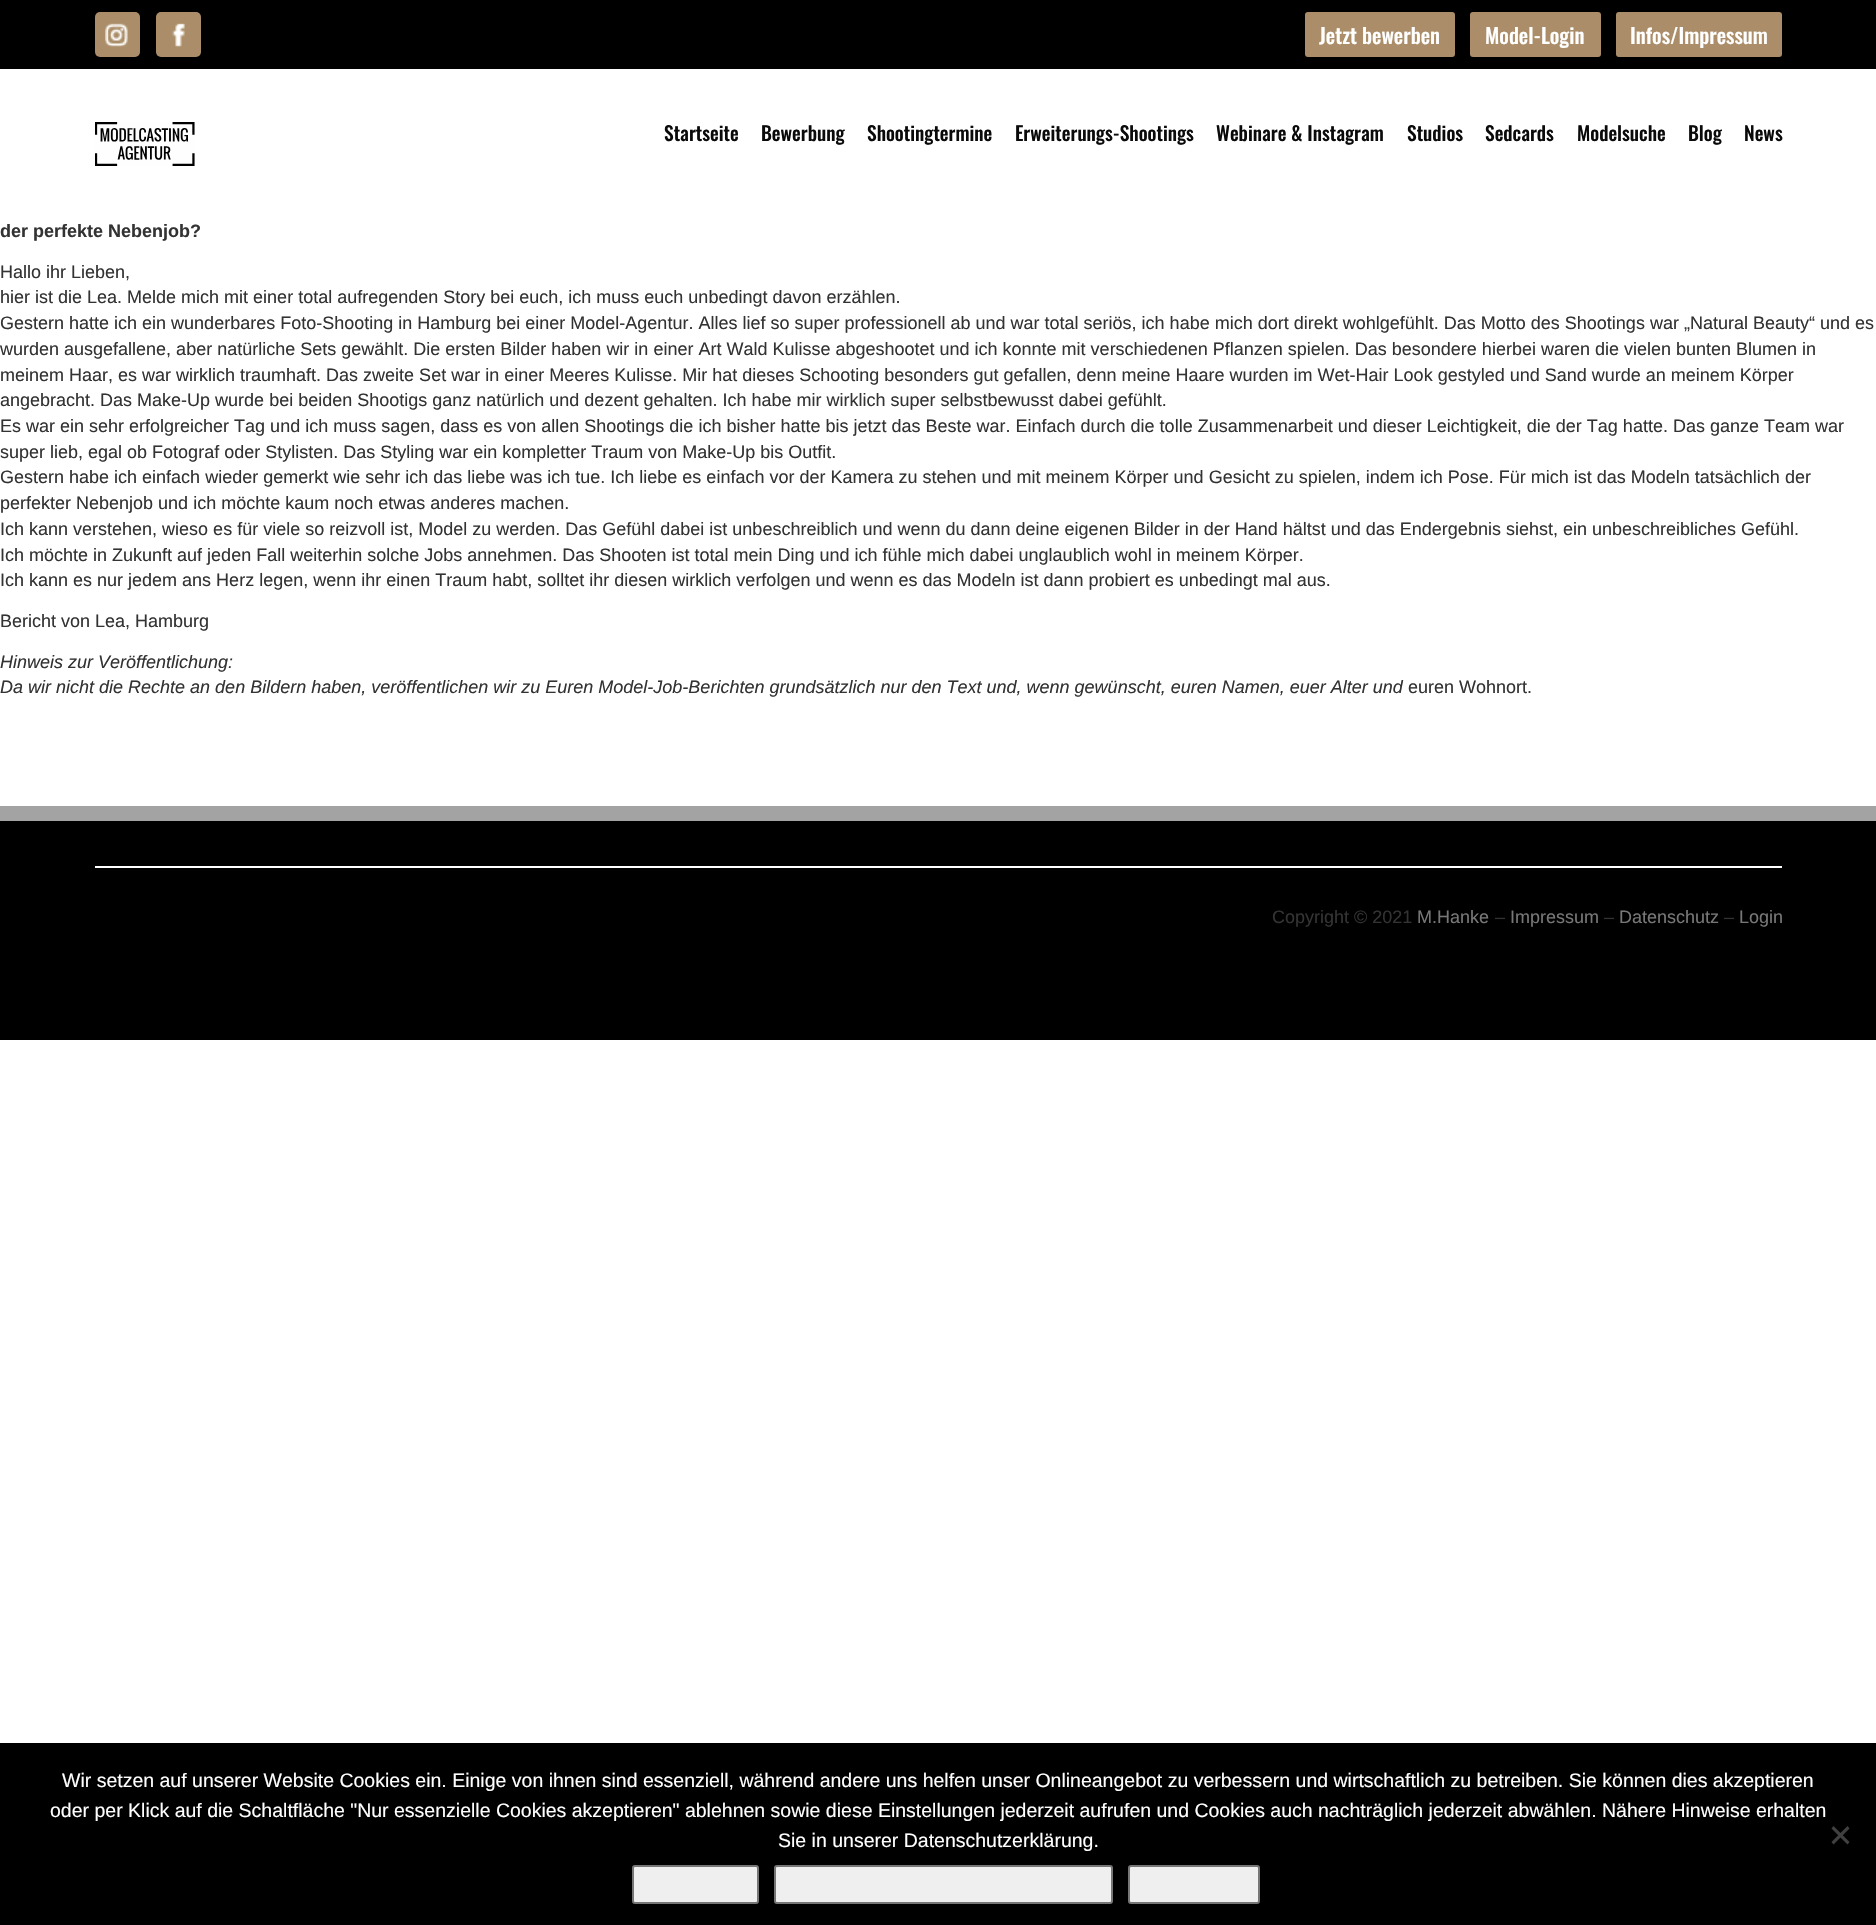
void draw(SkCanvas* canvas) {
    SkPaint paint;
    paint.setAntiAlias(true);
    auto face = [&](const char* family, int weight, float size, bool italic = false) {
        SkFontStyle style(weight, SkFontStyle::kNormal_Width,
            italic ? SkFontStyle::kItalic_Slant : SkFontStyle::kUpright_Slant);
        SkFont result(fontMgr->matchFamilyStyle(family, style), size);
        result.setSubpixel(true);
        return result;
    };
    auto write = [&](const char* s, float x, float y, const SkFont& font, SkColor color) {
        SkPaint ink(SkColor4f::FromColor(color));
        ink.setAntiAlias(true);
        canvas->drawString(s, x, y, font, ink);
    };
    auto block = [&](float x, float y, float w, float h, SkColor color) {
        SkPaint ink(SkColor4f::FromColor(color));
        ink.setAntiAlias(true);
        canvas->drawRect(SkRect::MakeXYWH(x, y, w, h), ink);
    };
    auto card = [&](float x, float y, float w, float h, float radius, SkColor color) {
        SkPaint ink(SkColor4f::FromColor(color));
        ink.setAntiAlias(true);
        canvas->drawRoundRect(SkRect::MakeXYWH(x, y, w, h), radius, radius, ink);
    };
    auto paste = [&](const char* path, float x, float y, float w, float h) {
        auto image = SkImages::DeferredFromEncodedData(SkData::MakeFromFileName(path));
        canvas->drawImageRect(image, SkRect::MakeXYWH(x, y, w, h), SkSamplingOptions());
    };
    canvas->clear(SK_ColorWHITE);
    block(0, 0, 1876, 69, SK_ColorBLACK);
    card(95, 12, 45, 45, 5, SkColorSetRGB(171, 142, 105));
    card(156, 12, 45, 45, 5, SkColorSetRGB(171, 142, 105));
    paste("pic1.png", 105, 23, 23, 24);
    paste("pic2.png", 172, 23, 13, 24);
    card(1305, 12, 150, 45, 3, SkColorSetRGB(171, 142, 105));
    auto kFont1 = face("Oswald", 500, 21);
    write("Jetzt bewerben", 1319, 44, kFont1, SK_ColorWHITE);
    card(1470, 12, 131, 45, 3, SkColorSetRGB(171, 142, 105));
    write("Model-Login", 1485, 44, kFont1, SK_ColorWHITE);
    card(1616, 12, 166, 45, 3, SkColorSetRGB(171, 142, 105));
    write("Infos/Impressum", 1630, 44, kFont1, SK_ColorWHITE);
    paste("pic3.png", 95, 122, 100, 44);
    auto kFont2 = face("Oswald", 500, 19.5f);
    write("Startseite", 664, 141, kFont2, SkColorSetRGB(10, 10, 10));
    write("Bewerbung", 761, 141, kFont2, SkColorSetRGB(10, 10, 10));
    write("Shootingtermine", 867, 141, kFont2, SkColorSetRGB(10, 10, 10));
    write("Erweiterungs-Shootings", 1015, 141, kFont2, SkColorSetRGB(10, 10, 10));
    write("Webinare & Instagram", 1216, 141, kFont2, SkColorSetRGB(10, 10, 10));
    write("Studios", 1407, 141, kFont2, SkColorSetRGB(10, 10, 10));
    write("Sedcards", 1485, 141, kFont2, SkColorSetRGB(10, 10, 10));
    write("Modelsuche", 1577, 141, kFont2, SkColorSetRGB(10, 10, 10));
    write("Blog", 1688, 141, kFont2, SkColorSetRGB(10, 10, 10));
    write("News", 1744, 141, kFont2, SkColorSetRGB(10, 10, 10));
    auto kFont3 = face("Liberation Sans", 700, 18);
    write("der perfekte Nebenjob?", 0, 237, kFont3, SkColorSetRGB(51, 51, 51));
    auto kFont4 = face("Liberation Sans", 400, 18);
    write("Hallo ihr Lieben,", 0, 278, kFont4, SkColorSetRGB(51, 51, 51));
    write("hier ist die Lea. Melde mich mit einer total aufregenden Story bei euch, ich muss euch unbedingt davon erzählen.", 0, 303, kFont4, SkColorSetRGB(51, 51, 51));
    write("Gestern hatte ich ein wunderbares Foto-Shooting in Hamburg bei einer Model-Agentur. Alles lief so super professionell ab und war total seriös, ich habe mich dort direkt wohlgefühlt. Das Motto des Shootings war „Natural Beauty“ und es", 0, 329, kFont4, SkColorSetRGB(51, 51, 51));
    write("wurden ausgefallene, aber natürliche Sets gewählt. Die ersten Bilder haben wir in einer Art Wald Kulisse abgeshootet und ich konnte mit verschiedenen Pflanzen spielen. Das besondere hierbei waren die vielen bunten Blumen in", 0, 355, kFont4, SkColorSetRGB(51, 51, 51));
    write("meinem Haar, es war wirklich traumhaft. Das zweite Set war in einer Meeres Kulisse. Mir hat dieses Schooting besonders gut gefallen, denn meine Haare wurden im Wet-Hair Look gestyled und Sand wurde an meinem Körper", 0, 381, kFont4, SkColorSetRGB(51, 51, 51));
    write("angebracht. Das Make-Up wurde bei beiden Shootigs ganz natürlich und dezent gehalten. Ich habe mir wirklich super selbstbewusst dabei gefühlt.", 0, 406, kFont4, SkColorSetRGB(51, 51, 51));
    write("Es war ein sehr erfolgreicher Tag und ich muss sagen, dass es von allen Shootings die ich bisher hatte bis jetzt das Beste war. Einfach durch die tolle Zusammenarbeit und dieser Leichtigkeit, die der Tag hatte. Das ganze Team war", 0, 432, kFont4, SkColorSetRGB(51, 51, 51));
    write("super lieb, egal ob Fotograf oder Stylisten. Das Styling war ein kompletter Traum von Make-Up bis Outfit.", 0, 458, kFont4, SkColorSetRGB(51, 51, 51));
    write("Gestern habe ich einfach wieder gemerkt wie sehr ich das liebe was ich tue. Ich liebe es einfach vor der Kamera zu stehen und mit meinem Körper und Gesicht zu spielen, indem ich Pose. Für mich ist das Modeln tatsächlich der", 0, 483, kFont4, SkColorSetRGB(51, 51, 51));
    write("perfekter Nebenjob und ich möchte kaum noch etwas anderes machen.", 0, 509, kFont4, SkColorSetRGB(51, 51, 51));
    write("Ich kann verstehen, wieso es für viele so reizvoll ist, Model zu werden. Das Gefühl dabei ist unbeschreiblich und wenn du dann deine eigenen Bilder in der Hand hältst und das Endergebnis siehst, ein unbeschreibliches Gefühl.", 0, 535, kFont4, SkColorSetRGB(51, 51, 51));
    write("Ich möchte in Zukunft auf jeden Fall weiterhin solche Jobs annehmen. Das Shooten ist total mein Ding und ich fühle mich dabei unglaublich wohl in meinem Körper.", 0, 561, kFont4, SkColorSetRGB(51, 51, 51));
    write("Ich kann es nur jedem ans Herz legen, wenn ihr einen Traum habt, solltet ihr diesen wirklich verfolgen und wenn es das Modeln ist dann probiert es unbedingt mal aus.", 0, 586, kFont4, SkColorSetRGB(51, 51, 51));
    write("Bericht von Lea, Hamburg", 0, 627, kFont4, SkColorSetRGB(51, 51, 51));
    auto kFont5 = face("Liberation Sans", 400, 18, true);
    write("Hinweis zur Veröffentlichung:", 0, 668, kFont5, SkColorSetRGB(51, 51, 51));
    write("Da wir nicht die Rechte an den Bildern haben, veröffentlichen wir zu Euren Model-Job-Berichten grundsätzlich nur den Text und, wenn gewünscht, euren Namen, euer Alter und", 0, 693, kFont5, SkColorSetRGB(51, 51, 51));
    write("euren Wohnort.", 1408, 693, kFont4, SkColorSetRGB(51, 51, 51));
    block(0, 821, 1876, 219, SK_ColorBLACK);
    block(95, 866, 1687, 2, SK_ColorWHITE);
    write("Copyright © 2021", 1272, 923, kFont4, SkColorSetRGB(51, 51, 51));
    write("M.Hanke", 1417, 923, kFont4, SkColorSetRGB(119, 119, 119));
    write("–", 1495, 923, kFont4, SkColorSetRGB(51, 51, 51));
    write("Impressum", 1510, 923, kFont4, SkColorSetRGB(119, 119, 119));
    write("–", 1604, 923, kFont4, SkColorSetRGB(51, 51, 51));
    write("Datenschutz", 1619, 923, kFont4, SkColorSetRGB(119, 119, 119));
    write("–", 1724, 923, kFont4, SkColorSetRGB(51, 51, 51));
    write("Login", 1739, 923, kFont4, SkColorSetRGB(119, 119, 119));
    block(0, 806, 1876, 15, SkColorSetRGB(163, 163, 163));
    block(0, 1743, 1876, 182, SK_ColorBLACK);
    auto kFont6 = face("Liberation Sans", 400, 19.5f);
    write("Wir setzen auf unserer Website Cookies ein. Einige von ihnen sind essenziell, während andere uns helfen unser Onlineangebot zu verbessern und wirtschaftlich zu betreiben. Sie können dies akzeptieren", 62, 1787, kFont6, SK_ColorWHITE);
    write("oder per Klick auf die Schaltfläche \"Nur essenzielle Cookies akzeptieren\" ablehnen sowie diese Einstellungen jederzeit aufrufen und Cookies auch nachträglich jederzeit abwählen. Nähere Hinweise erhalten", 50, 1817, kFont6, SK_ColorWHITE);
    write("Sie in unserer Datenschutzerklärung.", 778, 1847, kFont6, SK_ColorWHITE);
    paint.setColor(SkColorSetRGB(64, 64, 64));
    canvas->drawPath(SkPathBuilder().moveTo(1847.5f, 1826).lineTo(1849.5f, 1828.5f).lineTo(1833.5f, 1844.5f).lineTo(1831.5f, 1842).close().detach(), paint);
    canvas->drawPath(SkPathBuilder().moveTo(1831.5f, 1828.5f).lineTo(1833.5f, 1826).lineTo(1849.5f, 1842).lineTo(1847.5f, 1844.5f).close().detach(), paint);
    paint.setColor(SkColorSetRGB(239, 239, 239));
    canvas->drawRoundRect(SkRect::MakeXYWH(633, 1866, 125, 37), 2, 2, paint);
    paint.setStyle(SkPaint::kStroke_Style);
    paint.setStrokeWidth(2);
    paint.setColor(SkColorSetRGB(118, 118, 118));
    canvas->drawRoundRect(SkRect::MakeXYWH(633, 1866, 125, 37), 2, 2, paint);
    paint.setStyle(SkPaint::kFill_Style);
    paint.setColor(SkColorSetRGB(239, 239, 239));
    canvas->drawRoundRect(SkRect::MakeXYWH(775, 1866, 337, 37), 2, 2, paint);
    paint.setStyle(SkPaint::kStroke_Style);
    paint.setColor(SkColorSetRGB(118, 118, 118));
    canvas->drawRoundRect(SkRect::MakeXYWH(775, 1866, 337, 37), 2, 2, paint);
    paint.setStyle(SkPaint::kFill_Style);
    paint.setColor(SkColorSetRGB(239, 239, 239));
    canvas->drawRoundRect(SkRect::MakeXYWH(1129, 1866, 130, 37), 2, 2, paint);
    paint.setStyle(SkPaint::kStroke_Style);
    paint.setColor(SkColorSetRGB(118, 118, 118));
    canvas->drawRoundRect(SkRect::MakeXYWH(1129, 1866, 130, 37), 2, 2, paint);
}
